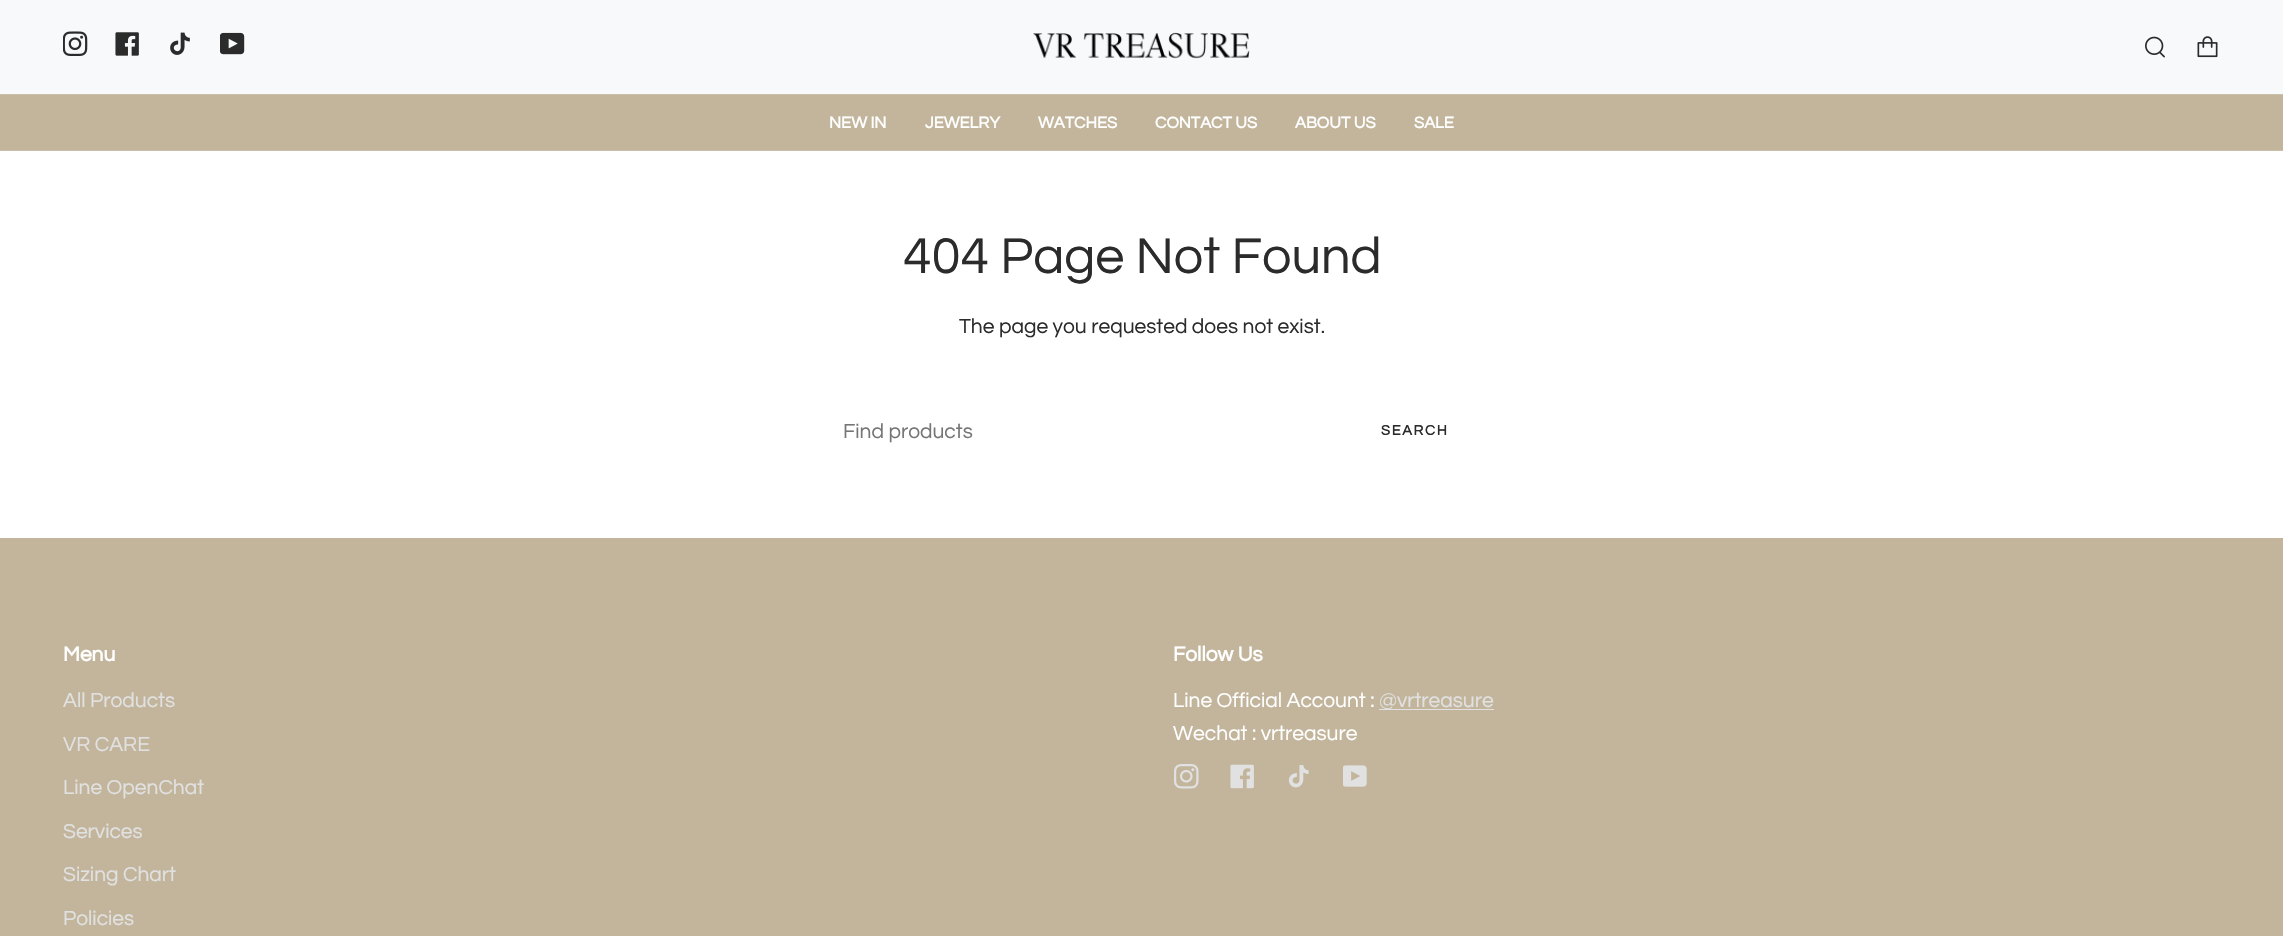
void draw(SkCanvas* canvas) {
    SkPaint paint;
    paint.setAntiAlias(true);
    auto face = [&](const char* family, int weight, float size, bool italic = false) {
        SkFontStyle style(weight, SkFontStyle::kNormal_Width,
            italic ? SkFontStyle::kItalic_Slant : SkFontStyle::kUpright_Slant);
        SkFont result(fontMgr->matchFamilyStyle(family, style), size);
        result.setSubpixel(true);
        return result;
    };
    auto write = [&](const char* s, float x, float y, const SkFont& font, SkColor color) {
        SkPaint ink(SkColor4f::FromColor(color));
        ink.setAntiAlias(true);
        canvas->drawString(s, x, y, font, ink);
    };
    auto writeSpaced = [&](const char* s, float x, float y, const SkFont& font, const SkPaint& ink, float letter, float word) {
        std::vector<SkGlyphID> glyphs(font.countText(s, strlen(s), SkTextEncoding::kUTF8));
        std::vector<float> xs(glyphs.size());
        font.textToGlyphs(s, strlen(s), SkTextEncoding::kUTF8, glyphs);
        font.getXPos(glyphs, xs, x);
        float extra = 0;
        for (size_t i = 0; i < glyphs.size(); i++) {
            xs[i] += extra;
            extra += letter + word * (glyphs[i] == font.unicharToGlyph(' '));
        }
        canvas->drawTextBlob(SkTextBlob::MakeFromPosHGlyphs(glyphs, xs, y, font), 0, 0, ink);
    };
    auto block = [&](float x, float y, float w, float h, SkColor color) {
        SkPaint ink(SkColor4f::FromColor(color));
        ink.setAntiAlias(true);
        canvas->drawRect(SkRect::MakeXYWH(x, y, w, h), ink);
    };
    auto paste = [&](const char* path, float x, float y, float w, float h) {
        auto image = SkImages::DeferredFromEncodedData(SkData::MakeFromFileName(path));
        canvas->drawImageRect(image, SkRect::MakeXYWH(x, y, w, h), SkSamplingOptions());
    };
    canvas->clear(SK_ColorWHITE);
    block(0, 150, 2283, 1, SkColorSetRGB(202, 191, 169));
    block(0, 0, 2283, 94, SkColorSetRGB(247, 249, 250));
    paste("pic1.png", 63, 31, 25, 25);
    paste("pic2.png", 115, 32, 24, 24);
    paste("pic3.png", 170, 32, 20, 23);
    paste("pic4.png", 220, 32, 25, 23);
    paste("pic5.png", 1033, 32, 217, 27);
    paste("pic6.png", 2145, 36, 20, 22);
    paste("pic7.png", 2197, 36, 21, 22);
    block(0, 95, 2283, 55, SkColorSetRGB(194, 181, 155));
    block(0, 94, 2283, 1, SkColorSetRGB(202, 191, 169));
    auto kFont1 = face("Questrial", 700, 16.5f);
    write("NEW IN", 829, 128, kFont1, SK_ColorWHITE);
    write("JEWELRY", 925, 128, kFont1, SK_ColorWHITE);
    write("WATCHES", 1038, 128, kFont1, SK_ColorWHITE);
    write("CONTACT US", 1155, 128, kFont1, SK_ColorWHITE);
    write("ABOUT US", 1295, 128, kFont1, SK_ColorWHITE);
    write("SALE", 1414, 128, kFont1, SK_ColorWHITE);
    auto kFont2 = face("Questrial", 400, 52.25f);
    write("404 Page Not Found", 903, 273, kFont2, SkColorSetRGB(43, 43, 43));
    auto kFont3 = face("Questrial", 400, 21);
    write("The page you requested does not exist.", 959, 333, kFont3, SkColorSetRGB(43, 43, 43));
    write("Find products", 843, 438, kFont3, SkColorSetRGB(117, 117, 117));
    auto kFont4 = face("Questrial", 700, 14.5f);
    paint.setColor(SkColorSetRGB(43, 43, 43));
    writeSpaced("SEARCH", 1381, 435, kFont4, paint, 1.75f, 0);
    block(0, 538, 2283, 398, SkColorSetRGB(194, 181, 155));
    auto kFont5 = face("Questrial", 700, 21);
    write("Menu", 63, 661, kFont5, SK_ColorWHITE);
    write("All Products", 63, 707, kFont3, SkColorSetRGB(225, 225, 225));
    write("VR CARE", 63, 751, kFont3, SkColorSetRGB(225, 225, 225));
    write("Line OpenChat", 63, 794, kFont3, SkColorSetRGB(225, 225, 225));
    write("Services", 63, 838, kFont3, SkColorSetRGB(225, 225, 225));
    write("Sizing Chart", 63, 881, kFont3, SkColorSetRGB(225, 225, 225));
    write("Policies", 63, 925, kFont3, SkColorSetRGB(225, 225, 225));
    write("Follow Us", 1173, 661, kFont5, SK_ColorWHITE);
    write("Line Official Account :", 1173, 707, kFont3, SK_ColorWHITE);
    block(1379, 709, 115, 1, SkColorSetRGB(225, 225, 225));
    write("@vrtreasure", 1379, 707, kFont3, SkColorSetRGB(225, 225, 225));
    write("Wechat : vrtreasure", 1173, 740, kFont3, SK_ColorWHITE);
    paste("pic8.png", 1174, 764, 25, 25);
    paste("pic9.png", 1230, 764, 24, 25);
    paste("pic10.png", 1288, 765, 21, 23);
    paste("pic11.png", 1343, 765, 24, 22);
}
